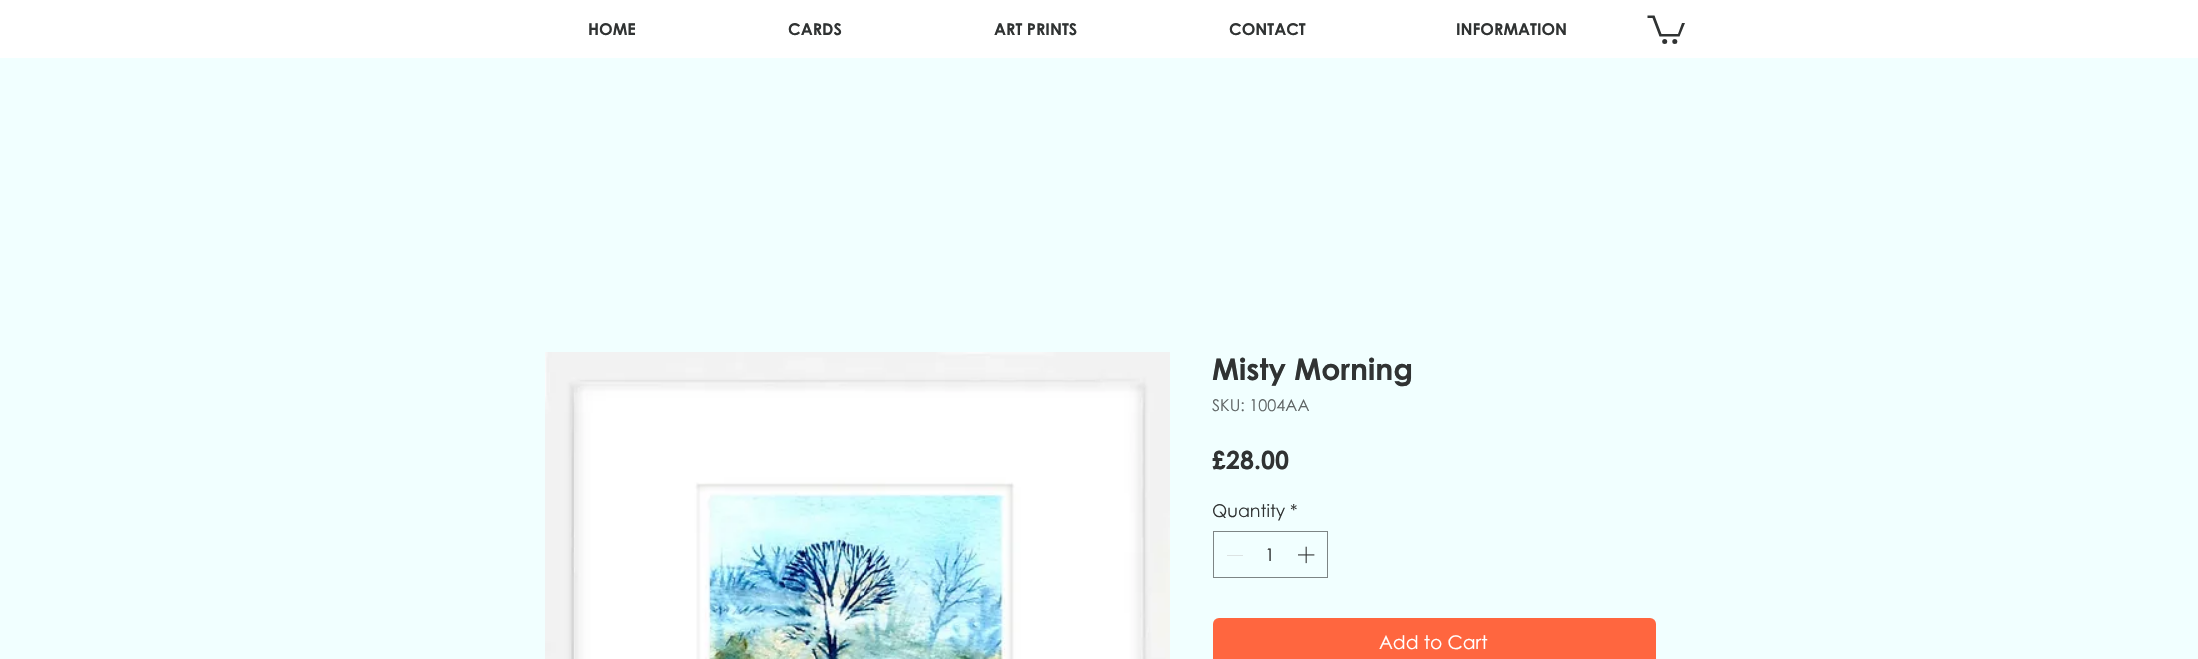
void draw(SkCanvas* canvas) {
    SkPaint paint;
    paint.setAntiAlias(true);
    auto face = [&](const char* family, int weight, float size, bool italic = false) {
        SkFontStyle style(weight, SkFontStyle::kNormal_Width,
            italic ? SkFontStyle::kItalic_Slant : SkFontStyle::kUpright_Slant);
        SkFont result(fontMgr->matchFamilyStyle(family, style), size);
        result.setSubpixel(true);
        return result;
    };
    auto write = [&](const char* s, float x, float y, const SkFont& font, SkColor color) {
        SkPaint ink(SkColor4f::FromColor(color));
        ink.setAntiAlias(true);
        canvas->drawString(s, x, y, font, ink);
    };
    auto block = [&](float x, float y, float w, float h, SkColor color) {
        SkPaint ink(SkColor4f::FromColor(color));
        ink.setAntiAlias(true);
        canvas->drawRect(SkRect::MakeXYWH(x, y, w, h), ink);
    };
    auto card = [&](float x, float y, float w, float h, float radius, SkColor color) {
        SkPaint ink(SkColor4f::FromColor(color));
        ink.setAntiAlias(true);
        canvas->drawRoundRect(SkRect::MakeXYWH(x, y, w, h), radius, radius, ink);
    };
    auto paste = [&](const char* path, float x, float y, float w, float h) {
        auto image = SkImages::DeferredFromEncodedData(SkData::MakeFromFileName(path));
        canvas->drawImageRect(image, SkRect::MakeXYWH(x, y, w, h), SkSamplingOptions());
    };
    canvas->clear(SkColorSetRGB(241, 255, 255));
    block(0, 0, 2198, 58, SK_ColorWHITE);
    auto kFont1 = face("Century Gothic", 700, 16.25f);
    write("HOME", 588, 35, kFont1, SkColorSetRGB(48, 51, 51));
    write("CARDS", 788, 35, kFont1, SkColorSetRGB(48, 51, 51));
    write("ART PRINTS", 994, 35, kFont1, SkColorSetRGB(48, 51, 51));
    write("CONTACT", 1229, 35, kFont1, SkColorSetRGB(48, 51, 51));
    write("INFORMATION", 1456, 35, kFont1, SkColorSetRGB(48, 51, 51));
    paint.setColor(SkColorSetRGB(48, 51, 51));
    canvas->drawPath(SkPathBuilder().moveTo(1685, 23).lineTo(1679.5f, 36.5f).lineTo(1659.5f, 36.5f).lineTo(1652.5f, 18).lineTo(1647.5f, 18).lineTo(1647.5f, 15.5f).lineTo(1654.5f, 15.5f).lineTo(1661.5f, 34).lineTo(1678, 34).lineTo(1682, 23).detach(), paint);
    canvas->drawCircle(1674.8f, 41.5f, 2.5f, paint);
    canvas->drawCircle(1664.7f, 41.5f, 2.5f, paint);
    paste("pic1.png", 545, 352, 625, 307);
    auto kFont2 = face("Century Gothic", 700, 30);
    write("Misty Morning", 1212, 380, kFont2, SkColorSetRGB(48, 51, 51));
    auto kFont3 = face("Century Gothic", 400, 16.25f);
    write("SKU: 1004AA", 1212, 411, kFont3, SkColorSetRGB(96, 102, 102));
    auto kFont4 = face("Century Gothic", 700, 25);
    write("£28.00", 1212, 469, kFont4, SkColorSetRGB(48, 51, 51));
    auto kFont5 = face("Century Gothic", 400, 17.5f);
    write("Quantity *", 1212, 517, kFont5, SkColorSetRGB(48, 51, 51));
    paint.setStyle(SkPaint::kStroke_Style);
    paint.setStrokeWidth(1);
    paint.setColor(SkColorSetRGB(125, 133, 133));
    canvas->drawRect(SkRect::MakeXYWH(1213.5f, 531.5f, 114, 46), paint);
    block(1227, 555, 16, 1, SkColorSetRGB(220, 227, 227));
    write("1", 1265, 561, kFont5, SkColorSetRGB(48, 51, 51));
    paste("pic2.png", 1298, 546, 17, 18);
    card(1213, 618, 443, 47, 6, SkColorSetRGB(255, 102, 63));
    auto kFont6 = face("Century Gothic", 400, 18.75f);
    write("Add to Cart", 1379, 649, kFont6, SK_ColorWHITE);
}
